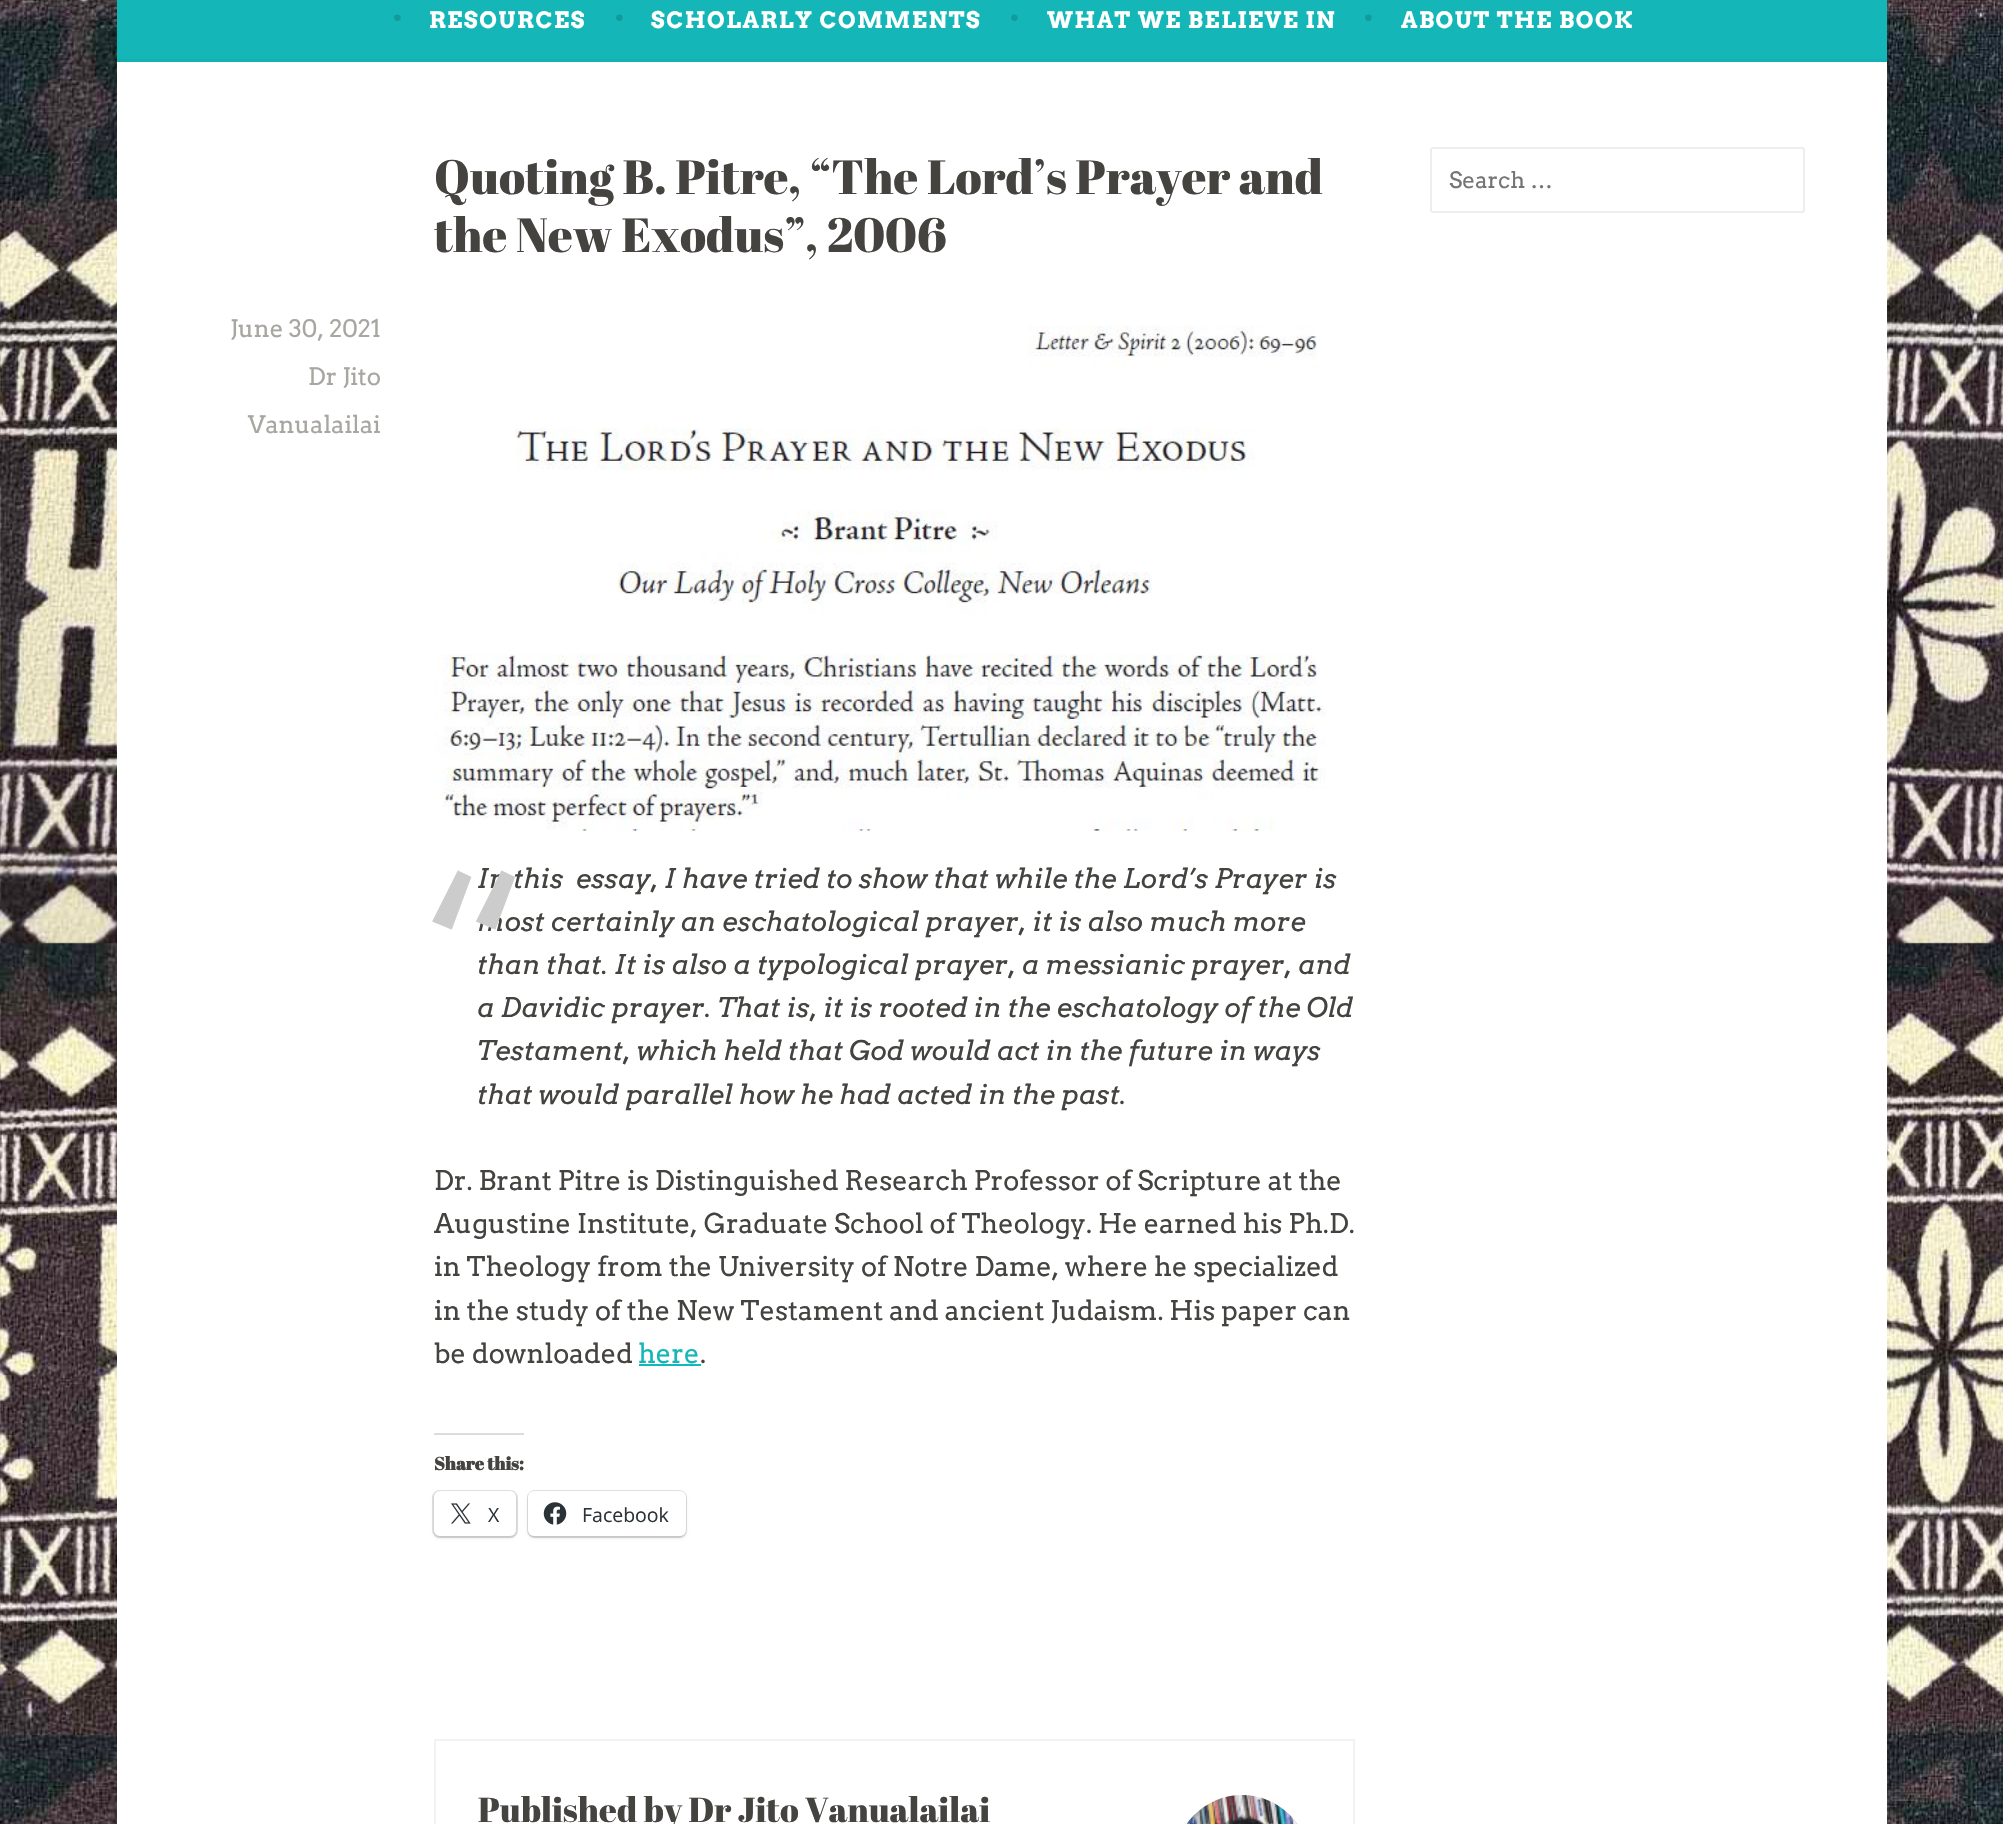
void draw(SkCanvas* canvas) {
    SkPaint paint;
    paint.setAntiAlias(true);
    auto face = [&](const char* family, int weight, float size, bool italic = false) {
        SkFontStyle style(weight, SkFontStyle::kNormal_Width,
            italic ? SkFontStyle::kItalic_Slant : SkFontStyle::kUpright_Slant);
        SkFont result(fontMgr->matchFamilyStyle(family, style), size);
        result.setSubpixel(true);
        return result;
    };
    auto write = [&](const char* s, float x, float y, const SkFont& font, SkColor color) {
        SkPaint ink(SkColor4f::FromColor(color));
        ink.setAntiAlias(true);
        canvas->drawString(s, x, y, font, ink);
    };
    auto writeSpaced = [&](const char* s, float x, float y, const SkFont& font, const SkPaint& ink, float letter, float word) {
        std::vector<SkGlyphID> glyphs(font.countText(s, strlen(s), SkTextEncoding::kUTF8));
        std::vector<float> xs(glyphs.size());
        font.textToGlyphs(s, strlen(s), SkTextEncoding::kUTF8, glyphs);
        font.getXPos(glyphs, xs, x);
        float extra = 0;
        for (size_t i = 0; i < glyphs.size(); i++) {
            xs[i] += extra;
            extra += letter + word * (glyphs[i] == font.unicharToGlyph(' '));
        }
        canvas->drawTextBlob(SkTextBlob::MakeFromPosHGlyphs(glyphs, xs, y, font), 0, 0, ink);
    };
    auto block = [&](float x, float y, float w, float h, SkColor color) {
        SkPaint ink(SkColor4f::FromColor(color));
        ink.setAntiAlias(true);
        canvas->drawRect(SkRect::MakeXYWH(x, y, w, h), ink);
    };
    auto card = [&](float x, float y, float w, float h, float radius, SkColor color) {
        SkPaint ink(SkColor4f::FromColor(color));
        ink.setAntiAlias(true);
        canvas->drawRoundRect(SkRect::MakeXYWH(x, y, w, h), radius, radius, ink);
    };
    auto paste = [&](const char* path, float x, float y, float w, float h) {
        auto image = SkImages::DeferredFromEncodedData(SkData::MakeFromFileName(path));
        canvas->drawImageRect(image, SkRect::MakeXYWH(x, y, w, h), SkSamplingOptions());
    };
    canvas->clear(SK_ColorWHITE);
    paste("pic1.png", 0, 0, 2003, 1824);
    block(117, 0, 1770, 59, SkColorSetRGB(21, 182, 184));
    block(117, 59, 1770, 3, SkColorSetRGB(20, 177, 178));
    auto kFont1 = face("Arvo", 400, 27);
    write("•", 392, 28, kFont1, SkColorSetRGB(18, 155, 156));
    auto kFont2 = face("Arvo", 700, 22.5f);
    paint.setColor(SK_ColorWHITE);
    writeSpaced("RESOURCES", 429, 28, kFont2, paint, 1.5f, 0);
    write("•", 614, 28, kFont1, SkColorSetRGB(18, 155, 156));
    writeSpaced("SCHOLARLY COMMENTS", 651, 28, kFont2, paint, 1.5f, 0);
    write("•", 1009, 28, kFont1, SkColorSetRGB(18, 155, 156));
    writeSpaced("WHAT WE BELIEVE IN", 1047, 28, kFont2, paint, 1.5f, 0);
    write("•", 1363, 28, kFont1, SkColorSetRGB(18, 155, 156));
    writeSpaced("ABOUT THE BOOK", 1401, 28, kFont2, paint, 1.5f, 0);
    block(117, 62, 1770, 1762, SK_ColorWHITE);
    auto kFont3 = face("Abril Fatface", 400, 48);
    write("Quoting B. Pitre, “The Lord’s Prayer and", 434, 194, kFont3, SkColorSetRGB(68, 67, 64));
    write("the New Exodus”, 2006", 434, 252, kFont3, SkColorSetRGB(68, 67, 64));
    auto kFont4 = face("Arvo", 400, 24);
    write("June 30, 2021", 230, 337, kFont4, SkColorSetRGB(168, 166, 161));
    write("Dr Jito", 308, 385, kFont4, SkColorSetRGB(168, 166, 161));
    write("Vanualailai", 248, 433, kFont4, SkColorSetRGB(168, 166, 161));
    paste("pic2.png", 434, 325, 892, 506);
    auto kFont5 = face("Arvo", 400, 27, true);
    write("In this  essay, I have tried to show that while the Lord’s Prayer is", 477, 888, kFont5, SkColorSetRGB(68, 67, 64));
    write("most certainly an eschatological prayer, it is also much more", 477, 931, kFont5, SkColorSetRGB(68, 67, 64));
    auto kFont6 = face("Arvo", 400, 210);
    write("“", 419, 1030, kFont6, SkColorSetRGB(204, 204, 204));
    write("than that. It is also a typological prayer, a messianic prayer, and", 477, 974, kFont5, SkColorSetRGB(68, 67, 64));
    write("a Davidic prayer. That is, it is rooted in the eschatology of the Old", 477, 1017, kFont5, SkColorSetRGB(68, 67, 64));
    write("Testament, which held that God would act in the future in ways", 477, 1060, kFont5, SkColorSetRGB(68, 67, 64));
    write("that would parallel how he had acted in the past", 477, 1104, kFont5, SkColorSetRGB(68, 67, 64));
    write(".", 1119, 1104, kFont1, SkColorSetRGB(68, 67, 64));
    write("Dr. Brant Pitre is Distinguished Research Professor of Scripture at the", 434, 1190, kFont1, SkColorSetRGB(68, 67, 64));
    write("Augustine Institute, Graduate School of Theology. He earned his Ph.D.", 434, 1233, kFont1, SkColorSetRGB(68, 67, 64));
    write("in Theology from the University of Notre Dame, where he specialized", 434, 1276, kFont1, SkColorSetRGB(68, 67, 64));
    write("in the study of the New Testament and ancient Judaism. His paper can", 434, 1320, kFont1, SkColorSetRGB(68, 67, 64));
    write("be downloaded", 434, 1363, kFont1, SkColorSetRGB(68, 67, 64));
    write("here", 638, 1363, kFont1, SkColorSetRGB(21, 182, 184));
    block(639, 1364, 62, 2, SkColorSetRGB(21, 182, 184));
    write(".", 700, 1363, kFont1, SkColorSetRGB(68, 67, 64));
    block(434, 1433, 90, 2, SkColorSetRGB(220, 220, 222));
    auto kFont7 = face("Abril Fatface", 700, 18);
    write("Share this:", 434, 1470, kFont7, SkColorSetRGB(68, 67, 64));
    paint.setStyle(SkPaint::kStroke_Style);
    paint.setStrokeWidth(2);
    paint.setColor(SkColorSetRGB(224, 224, 224));
    canvas->drawRoundRect(SkRect::MakeXYWH(433, 1491, 84, 46), 7, 7, paint);
    paint.setStyle(SkPaint::kFill_Style);
    paint.setColor(SkColorSetARGB(31, 0, 0, 0));
    paint.setMaskFilter(SkMaskFilter::MakeBlur(kNormal_SkBlurStyle, 1.5f));
    canvas->drawRoundRect(SkRect::MakeXYWH(434, 1493, 82, 45), 6, 6, paint);
    paint.setMaskFilter(nullptr);
    card(434, 1491, 82, 45, 6, SK_ColorWHITE);
    paste("pic3.png", 451, 1503, 20, 21);
    auto kFont8 = face("Open Sans", 400, 19.5f);
    write("X", 488, 1522, kFont8, SkColorSetRGB(44, 51, 56));
    paint.setStyle(SkPaint::kStroke_Style);
    paint.setColor(SkColorSetRGB(224, 224, 224));
    canvas->drawRoundRect(SkRect::MakeXYWH(528, 1491, 158, 46), 7, 7, paint);
    paint.setStyle(SkPaint::kFill_Style);
    paint.setColor(SkColorSetARGB(31, 0, 0, 0));
    paint.setMaskFilter(SkMaskFilter::MakeBlur(kNormal_SkBlurStyle, 1.5f));
    canvas->drawRoundRect(SkRect::MakeXYWH(528, 1493, 158, 45), 6, 6, paint);
    paint.setMaskFilter(nullptr);
    card(528, 1491, 158, 45, 6, SK_ColorWHITE);
    paste("pic4.png", 543, 1502, 24, 23);
    write("Facebook", 582, 1522, kFont8, SkColorSetRGB(44, 51, 56));
    paint.setStyle(SkPaint::kStroke_Style);
    paint.setColor(SkColorSetRGB(242, 242, 242));
    canvas->drawRect(SkRect::MakeXYWH(435, 1740, 919, 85), paint);
    auto kFont9 = face("Abril Fatface", 400, 34.5f);
    write("Published by Dr Jito Vanualailai", 478, 1822, kFont9, SkColorSetRGB(68, 67, 64));
    paste("pic5.png", 1186, 1795, 112, 29);
    paint.setColor(SkColorSetRGB(238, 238, 238));
    canvas->drawRoundRect(SkRect::MakeXYWH(1431, 148, 373, 64), 2, 2, paint);
    auto kFont10 = face("Arvo", 400, 22.5f);
    write("Search …", 1449, 188, kFont10, SkColorSetRGB(117, 117, 117));
}
